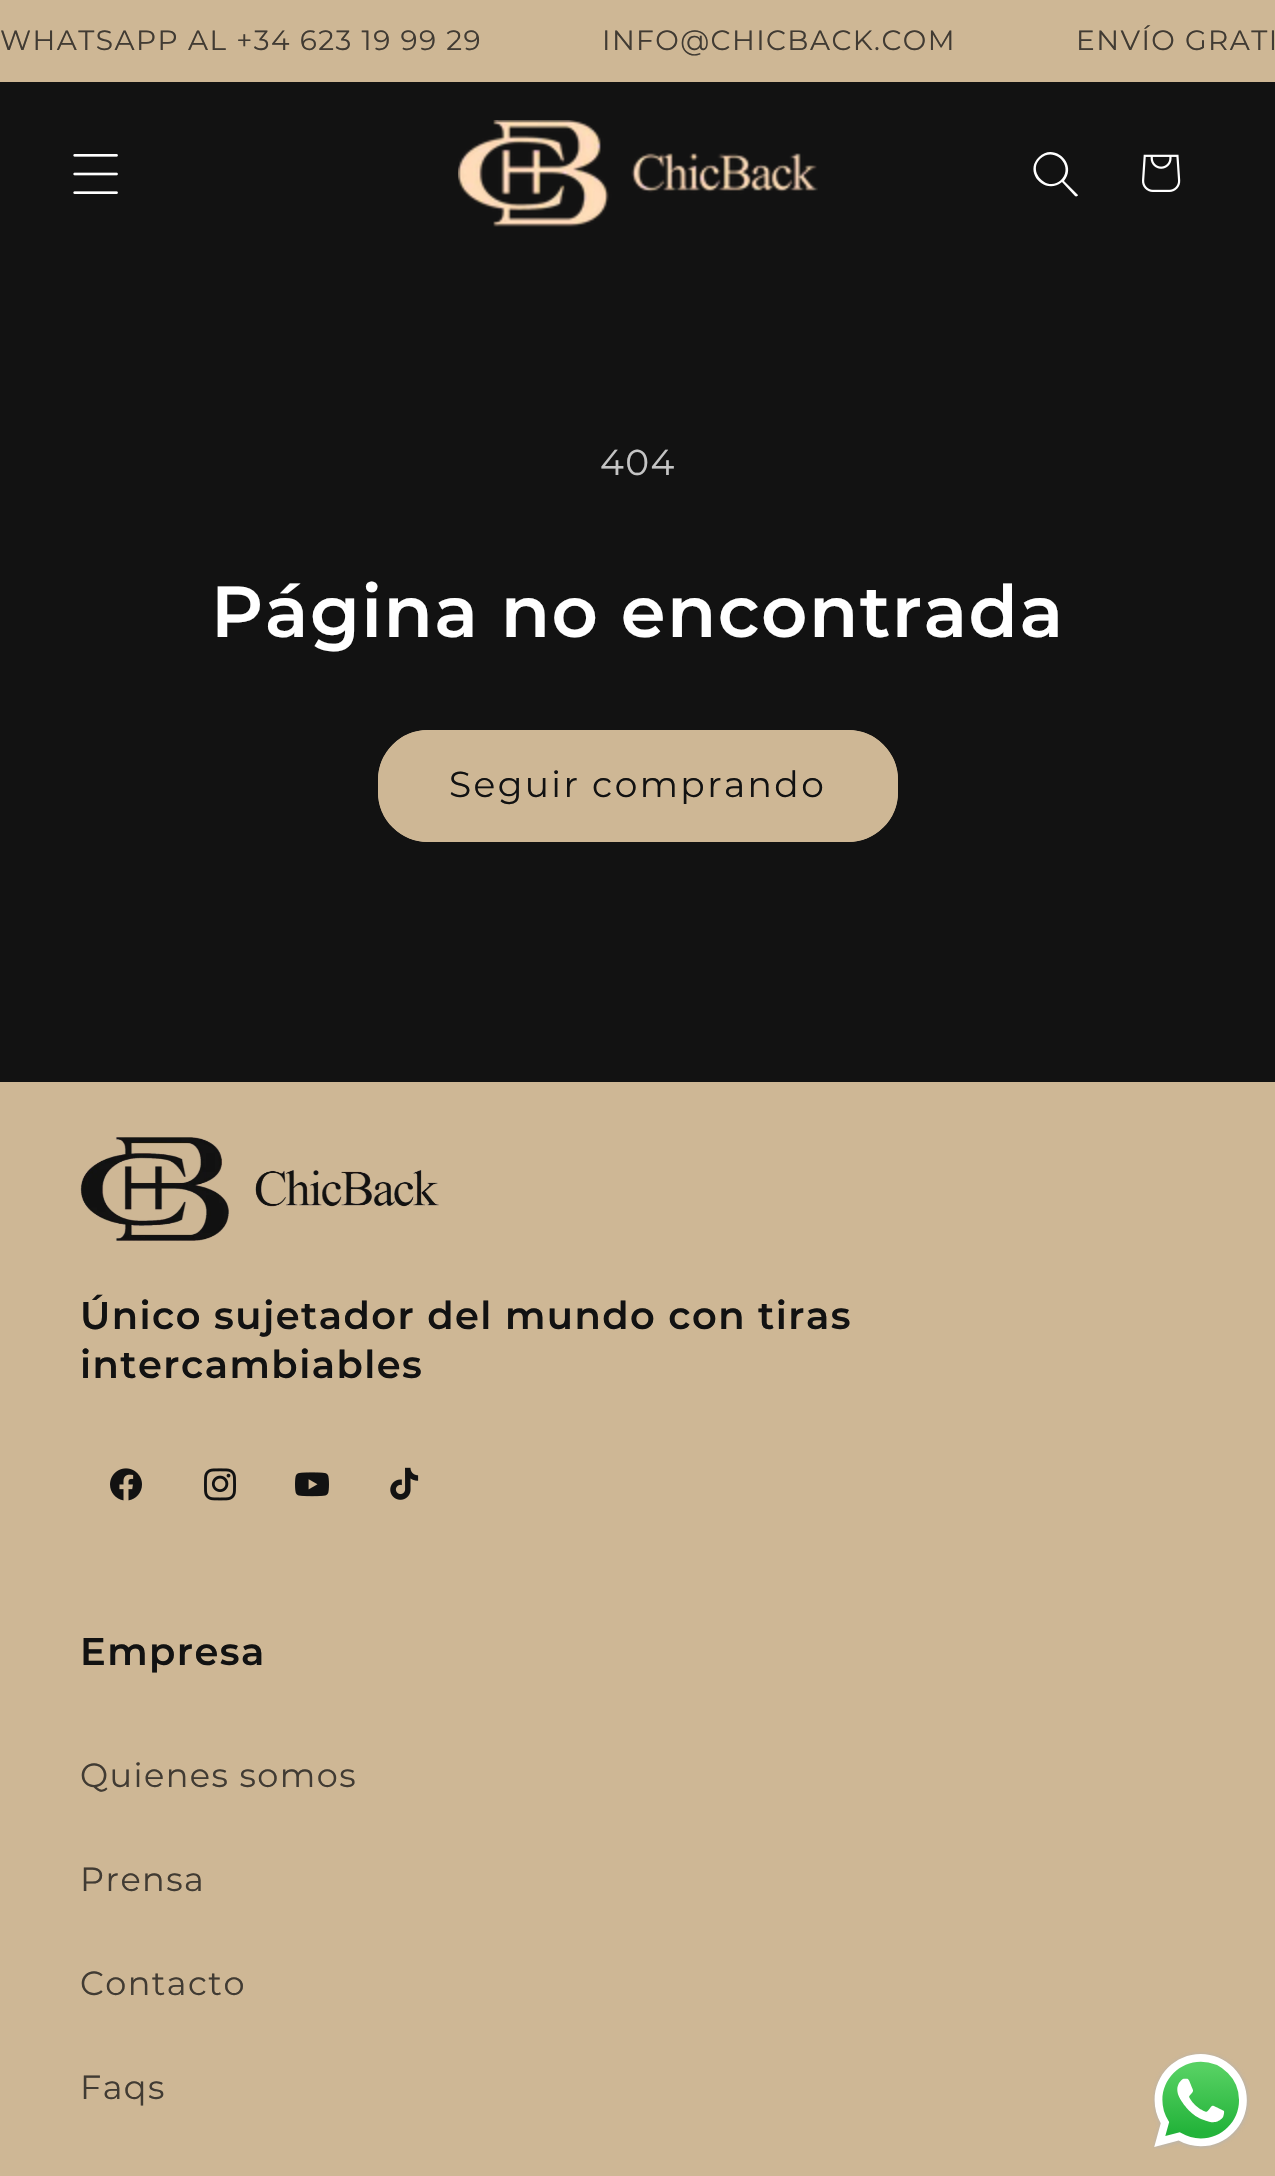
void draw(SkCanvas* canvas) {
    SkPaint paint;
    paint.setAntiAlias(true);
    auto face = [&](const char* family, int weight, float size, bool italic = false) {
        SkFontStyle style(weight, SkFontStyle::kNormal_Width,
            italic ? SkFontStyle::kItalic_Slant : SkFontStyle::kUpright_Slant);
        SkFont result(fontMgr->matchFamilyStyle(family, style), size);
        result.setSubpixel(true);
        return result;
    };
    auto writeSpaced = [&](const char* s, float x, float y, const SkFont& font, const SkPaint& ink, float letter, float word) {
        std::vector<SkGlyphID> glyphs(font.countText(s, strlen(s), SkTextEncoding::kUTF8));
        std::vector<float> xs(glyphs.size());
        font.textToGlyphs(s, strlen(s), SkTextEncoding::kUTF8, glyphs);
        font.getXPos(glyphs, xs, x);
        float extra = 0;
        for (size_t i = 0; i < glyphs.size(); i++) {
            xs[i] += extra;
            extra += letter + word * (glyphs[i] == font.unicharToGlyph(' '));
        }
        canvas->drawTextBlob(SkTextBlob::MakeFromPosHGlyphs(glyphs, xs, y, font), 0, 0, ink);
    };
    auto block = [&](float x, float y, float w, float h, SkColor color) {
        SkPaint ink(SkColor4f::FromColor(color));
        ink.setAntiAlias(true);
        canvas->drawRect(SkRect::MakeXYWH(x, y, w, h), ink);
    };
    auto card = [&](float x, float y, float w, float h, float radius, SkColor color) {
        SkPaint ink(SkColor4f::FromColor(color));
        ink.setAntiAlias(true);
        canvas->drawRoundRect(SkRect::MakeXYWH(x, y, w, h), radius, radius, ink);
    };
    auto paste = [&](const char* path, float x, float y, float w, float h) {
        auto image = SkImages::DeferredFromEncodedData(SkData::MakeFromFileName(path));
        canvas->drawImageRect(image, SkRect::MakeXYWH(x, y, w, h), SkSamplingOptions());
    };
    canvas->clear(SkColorSetRGB(18, 18, 18));
    block(0, 0, 1275, 82, SkColorSetRGB(206, 183, 149));
    auto kFont1 = face("Montserrat", 400, 28);
    paint.setColor(SkColorSetRGB(65, 59, 51));
    writeSpaced("WHATSAPP AL +34 623 19 99 29", 0, 50, kFont1, paint, 1.45f, 0);
    writeSpaced("INFO@CHICBACK.COM", 602, 50, kFont1, paint, 1.45f, 0);
    writeSpaced("ENVÍO GRATI", 1076, 50, kFont1, paint, 1.45f, 0);
    paste("pic1.png", 73, 154, 45, 40);
    paste("pic2.png", 458, 120, 360, 107);
    paint.setColor(SK_ColorWHITE);
    canvas->drawPath(SkPathBuilder(SkPathFillType::kEvenOdd).moveTo(1061, 180).cubicTo(1048, 193, 1027, 172, 1040, 159).cubicTo(1054, 145, 1075, 166, 1061, 180).moveTo(1062, 182).cubicTo(1045, 196, 1023, 172, 1039, 157).cubicTo(1054, 142, 1078, 164, 1064, 181).lineTo(1078, 195).cubicTo(1078, 196, 1076, 197, 1075, 196).close().detach(), paint);
    paste("pic3.png", 1142, 154, 39, 38);
    auto kFont2 = face("Montserrat", 400, 36);
    paint.setColor(SkColorSetRGB(196, 196, 196));
    writeSpaced("404", 600, 475, kFont2, paint, 1.45f, 0);
    auto kFont3 = face("Montserrat", 600, 72);
    paint.setColor(SK_ColorWHITE);
    writeSpaced("Página no encontrada", 211, 637, kFont3, paint, 1.45f, 0);
    card(378, 730, 520, 112, 50, SkColorSetRGB(206, 183, 149));
    paint.setStyle(SkPaint::kStroke_Style);
    paint.setStrokeWidth(2);
    paint.setColor(SkColorSetRGB(206, 183, 149));
    canvas->drawRoundRect(SkRect::MakeXYWH(379, 731, 518, 110), 49, 49, paint);
    paint.setStyle(SkPaint::kFill_Style);
    paint.setColor(SkColorSetRGB(18, 18, 18));
    writeSpaced("Seguir comprando", 449, 797, kFont2, paint, 2.4f, 0);
    block(0, 1082, 1275, 1094, SkColorSetRGB(206, 183, 149));
    paste("pic4.png", 80, 1137, 359, 104);
    auto kFont4 = face("Montserrat", 600, 38.4f);
    writeSpaced("Único sujetador del mundo con tiras", 80, 1329, kFont4, paint, 1.45f, 0);
    writeSpaced("intercambiables", 80, 1378, kFont4, paint, 1.45f, 0);
    paste("pic5.png", 110, 1468, 32, 33);
    paste("pic6.png", 204, 1468, 32, 33);
    paste("pic7.png", 295, 1472, 34, 25);
    paste("pic8.png", 390, 1467, 29, 33);
    writeSpaced("Empresa", 80, 1665, kFont4, paint, 1.45f, 0);
    auto kFont5 = face("Montserrat", 400, 33.5f);
    paint.setColor(SkColorSetRGB(65, 59, 51));
    writeSpaced("Quienes somos", 80, 1787, kFont5, paint, 1.45f, 0);
    writeSpaced("Prensa", 80, 1891, kFont5, paint, 1.45f, 0);
    writeSpaced("Contacto", 80, 1995, kFont5, paint, 1.45f, 0);
    writeSpaced("Faqs", 80, 2099, kFont5, paint, 1.45f, 0);
    paste("pic9.png", 1153, 2052, 97, 97);
}
